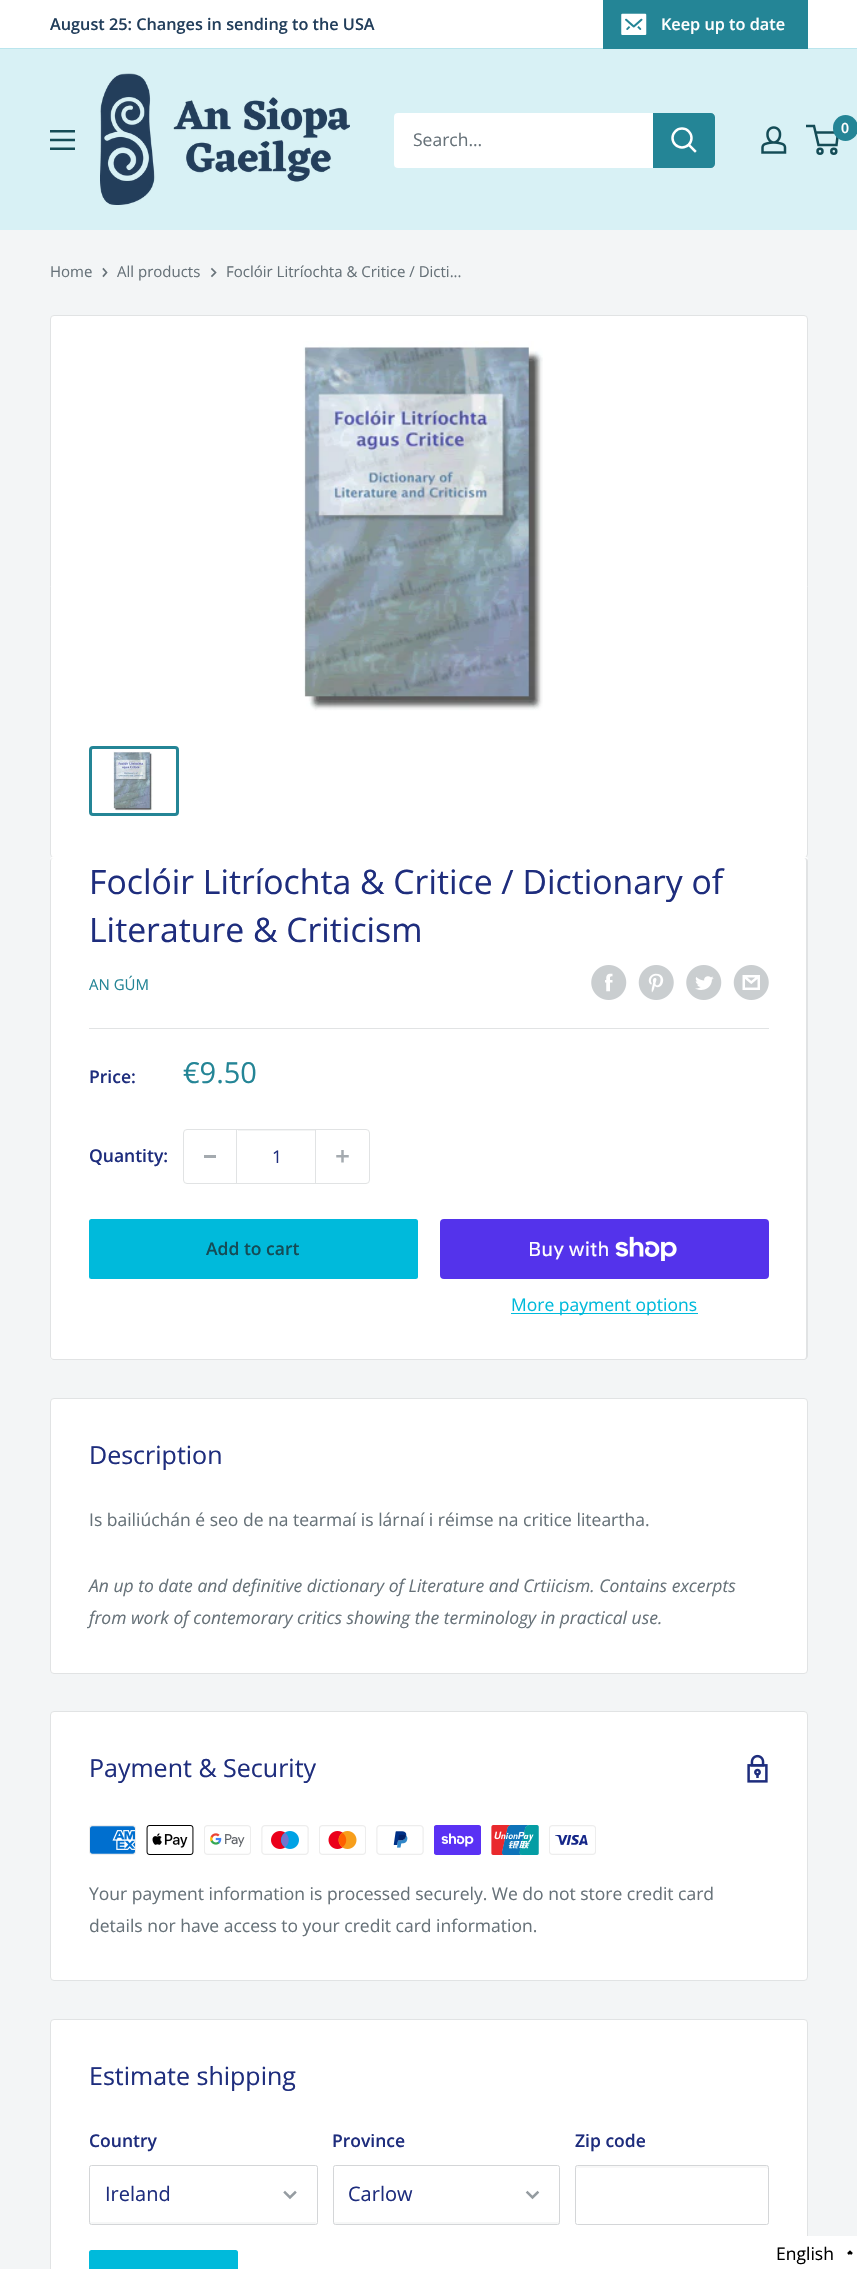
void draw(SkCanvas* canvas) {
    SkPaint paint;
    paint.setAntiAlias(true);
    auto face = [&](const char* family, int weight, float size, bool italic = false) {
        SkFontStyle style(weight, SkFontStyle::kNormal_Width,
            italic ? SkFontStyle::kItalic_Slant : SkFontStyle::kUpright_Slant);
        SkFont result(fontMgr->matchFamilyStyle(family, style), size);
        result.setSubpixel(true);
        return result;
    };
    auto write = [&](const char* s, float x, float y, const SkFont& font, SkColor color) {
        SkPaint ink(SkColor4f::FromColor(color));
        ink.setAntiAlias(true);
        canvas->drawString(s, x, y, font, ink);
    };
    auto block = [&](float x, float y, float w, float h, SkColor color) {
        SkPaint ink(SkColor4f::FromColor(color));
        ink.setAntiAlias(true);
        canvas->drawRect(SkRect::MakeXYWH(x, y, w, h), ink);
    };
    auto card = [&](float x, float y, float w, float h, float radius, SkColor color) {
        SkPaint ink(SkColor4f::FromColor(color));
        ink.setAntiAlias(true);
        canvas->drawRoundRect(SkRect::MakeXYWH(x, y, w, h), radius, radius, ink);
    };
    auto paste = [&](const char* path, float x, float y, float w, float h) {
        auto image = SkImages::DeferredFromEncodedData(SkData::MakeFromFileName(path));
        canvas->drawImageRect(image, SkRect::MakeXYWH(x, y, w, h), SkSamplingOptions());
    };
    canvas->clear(SkColorSetRGB(243, 245, 246));
    block(0, 0, 857, 48, SK_ColorWHITE);
    block(0, 48, 857, 1, SkColorSetRGB(186, 229, 237));
    auto kFont1 = face("Open Sans", 600, 16.25f);
    write("August 25: Changes in sending to the USA", 50, 30, kFont1, SkColorSetRGB(34, 62, 91));
    paint.setColor(SkColorSetRGB(36, 133, 150));
    canvas->drawPath(SkPathBuilder().moveTo(603, 48).lineTo(603, 49).lineTo(808, 49).lineTo(808, 1).lineTo(808, 48).close().detach(), paint);
    block(603, 0, 205, 48, SkColorSetRGB(36, 133, 150));
    paste("pic1.png", 621, 13, 26, 22);
    write("Keep up to date", 661, 30, kFont1, SK_ColorWHITE);
    block(0, 49, 857, 181, SkColorSetRGB(216, 241, 245));
    paste("pic2.png", 100, 73, 250, 132);
    paste("pic3.png", 761, 126, 26, 28);
    paint.setStyle(SkPaint::kStroke_Style);
    paint.setStrokeWidth(2.5f);
    paint.setColor(SkColorSetRGB(20, 76, 86));
    canvas->drawCircle(820, 151.2f, 2.5f, paint);
    canvas->drawCircle(833.8f, 151.2f, 2.5f, paint);
    canvas->drawPath(SkPathBuilder().moveTo(815.5f, 132.5f).lineTo(838, 132.5f).lineTo(836.5f, 145).lineTo(818.5f, 145).lineTo(814, 126).lineTo(806, 126).detach(), paint);
    card(833, 115, 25, 26, 12.5f, SkColorSetRGB(36, 133, 150));
    auto kFont2 = face("Open Sans", 600, 14);
    write("0", 841, 133, kFont2, SK_ColorWHITE);
    paste("pic4.png", 50, 130, 25, 20);
    card(394, 113, 321, 55, 4, SK_ColorWHITE);
    auto kFont3 = face("Open Sans", 400, 17.5f);
    write("Search...", 413, 146, kFont3, SkColorSetRGB(103, 114, 121));
    paint.setStyle(SkPaint::kFill_Style);
    paint.setColor(SkColorSetRGB(36, 133, 150));
    canvas->drawPath(SkPathBuilder().moveTo(653, 113).lineTo(711, 113).cubicTo(713, 113, 715, 115, 715, 117).lineTo(715, 164).cubicTo(715, 166, 713, 168, 711, 168).lineTo(653, 168).close().detach(), paint);
    paint.setStyle(SkPaint::kStroke_Style);
    paint.setStrokeCap(SkPaint::kSquare_Cap);
    paint.setColor(SK_ColorWHITE);
    canvas->drawPath(SkPathBuilder().moveTo(695, 151).lineTo(689, 145).detach(), paint);
    paint.setStrokeCap(SkPaint::kButt_Cap);
    canvas->drawCircle(682, 138, 9.5f, paint);
    auto kFont4 = face("Open Sans", 400, 15);
    write("Home", 50, 277, kFont4, SkColorSetRGB(103, 114, 121));
    paint.setStrokeWidth(1.7f);
    paint.setStrokeCap(SkPaint::kSquare_Cap);
    paint.setColor(SkColorSetRGB(103, 114, 121));
    canvas->drawPath(SkPathBuilder().moveTo(103.5f, 269).lineTo(106.5f, 272.5f).lineTo(103.5f, 276).detach(), paint);
    write("All products", 117, 277, kFont4, SkColorSetRGB(103, 114, 121));
    canvas->drawPath(SkPathBuilder().moveTo(212, 269).lineTo(215.5f, 272.5f).lineTo(212, 276).detach(), paint);
    write("Foclóir Litríochta & Critice / Dicti...", 226, 277, kFont4, SkColorSetRGB(103, 114, 121));
    paint.setStyle(SkPaint::kFill_Style);
    paint.setColor(SK_ColorWHITE);
    canvas->drawRoundRect(SkRect::MakeXYWH(50.5f, 315.5f, 757, 542), 3.5f, 3.5f, paint);
    paint.setStyle(SkPaint::kStroke_Style);
    paint.setStrokeWidth(1);
    paint.setStrokeCap(SkPaint::kButt_Cap);
    paint.setColor(SkColorSetRGB(225, 227, 228));
    canvas->drawRoundRect(SkRect::MakeXYWH(50.5f, 315.5f, 757, 542), 3.5f, 3.5f, paint);
    paste("pic5.png", 303, 341, 240, 370);
    paint.setStrokeWidth(3);
    paint.setColor(SkColorSetRGB(36, 133, 150));
    canvas->drawRoundRect(SkRect::MakeXYWH(90.5f, 747.5f, 87, 67), 2.5f, 2.5f, paint);
    paste("pic6.png", 113, 751, 40, 60);
    paint.setStyle(SkPaint::kFill_Style);
    paint.setColor(SK_ColorWHITE);
    canvas->drawPath(SkPathBuilder().moveTo(54, 856).cubicTo(51, 856, 50, 859, 50, 861).cubicTo(50, 859, 52, 858, 54, 858).lineTo(804, 858).cubicTo(806, 858, 808, 859, 808, 861).lineTo(807, 1357).lineTo(808, 1355).lineTo(808, 860).cubicTo(808, 858, 806, 856, 804, 856).close().detach(), paint);
    card(50, 858, 758, 502, 4, SK_ColorWHITE);
    paint.setColor(SkColorSetRGB(225, 227, 228));
    canvas->drawPath(SkPathBuilder(SkPathFillType::kEvenOdd).moveTo(54, 858).lineTo(804, 858).cubicTo(806, 858, 808, 859, 808, 861).lineTo(808, 1356).cubicTo(808, 1358, 806, 1360, 804, 1360).lineTo(54, 1360).cubicTo(52, 1360, 50, 1358, 50, 1356).lineTo(50, 861).cubicTo(50, 859, 52, 858, 54, 858).close().moveTo(54, 858).lineTo(804, 858).cubicTo(805, 858, 806, 859, 806, 861).lineTo(806, 1356).cubicTo(806, 1358, 805, 1359, 804, 1359).lineTo(54, 1359).cubicTo(52, 1359, 51, 1358, 51, 1356).lineTo(51, 861).cubicTo(51, 859, 52, 858, 54, 858).close().detach(), paint);
    auto kFont5 = face("Open Sans", 400, 33.75f);
    write("Foclóir Litríochta & Critice / Dictionary of", 89, 894, kFont5, SkColorSetRGB(30, 45, 125));
    write("Literature & Criticism", 89, 942, kFont5, SkColorSetRGB(30, 45, 125));
    write("AN GÚM", 89, 990, kFont4, SkColorSetRGB(36, 133, 150));
    paste("pic7.png", 591, 965, 36, 35);
    paste("pic8.png", 638, 965, 36, 35);
    paste("pic9.png", 686, 965, 36, 35);
    paste("pic10.png", 733, 965, 36, 35);
    block(89, 1028, 680, 1, SkColorSetRGB(225, 227, 228));
    auto kFont6 = face("Open Sans", 600, 17.5f);
    write("Price:", 89, 1083, kFont6, SkColorSetRGB(30, 45, 125));
    auto kFont7 = face("Open Sans", 400, 29);
    write("€9.50", 183, 1083, kFont7, SkColorSetRGB(36, 133, 150));
    write("Quantity:", 89, 1162, kFont6, SkColorSetRGB(30, 45, 125));
    paint.setStyle(SkPaint::kStroke_Style);
    paint.setStrokeWidth(1);
    canvas->drawRoundRect(SkRect::MakeXYWH(183.5f, 1129.5f, 186, 54), 3.5f, 3.5f, paint);
    block(204, 1155, 12, 3, SkColorSetRGB(164, 170, 175));
    block(238, 1130, 77, 1, SkColorSetRGB(243, 244, 244));
    block(315, 1130, 1, 53, SkColorSetRGB(225, 227, 228));
    block(236, 1130, 1, 53, SkColorSetRGB(225, 227, 228));
    write("1", 272, 1163, kFont3, SkColorSetRGB(30, 45, 125));
    paste("pic11.png", 336, 1150, 13, 13);
    card(89, 1219, 329, 60, 2.5f, SkColorSetRGB(0, 186, 219));
    write("Add to cart", 206, 1255, kFont6, SkColorSetRGB(20, 76, 86));
    card(440, 1219, 329, 60, 4, SkColorSetRGB(84, 51, 235));
    auto kFont8 = face("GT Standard", 400, 20);
    write("Buy with", 528, 1256, kFont8, SK_ColorWHITE);
    paste("pic12.png", 615, 1236, 62, 25);
    block(511, 1313, 187, 1, SkColorSetRGB(0, 186, 219));
    write("More payment options", 511, 1311, kFont3, SkColorSetRGB(0, 186, 219));
    paint.setStyle(SkPaint::kFill_Style);
    paint.setColor(SK_ColorWHITE);
    canvas->drawRoundRect(SkRect::MakeXYWH(50.5f, 1398.5f, 757, 275), 3.5f, 3.5f, paint);
    paint.setStyle(SkPaint::kStroke_Style);
    paint.setColor(SkColorSetRGB(225, 227, 228));
    canvas->drawRoundRect(SkRect::MakeXYWH(50.5f, 1398.5f, 757, 275), 3.5f, 3.5f, paint);
    auto kFont9 = face("Open Sans", 400, 25);
    write("Description", 89, 1464, kFont9, SkColorSetRGB(30, 45, 125));
    write("Is bailiúchán é seo de na tearmaí is lárnaí i réimse na critice liteartha.", 89, 1526, kFont3, SkColorSetRGB(103, 114, 121));
    auto kFont10 = face("Open Sans", 400, 17.5f, true);
    write("An up to date and definitive dictionary of Literature and Crtiicism. Contains excerpts", 89, 1592, kFont10, SkColorSetRGB(103, 114, 121));
    write("from work of contemorary critics showing the terminology in practical use.", 89, 1624, kFont10, SkColorSetRGB(103, 114, 121));
    paint.setStyle(SkPaint::kFill_Style);
    paint.setColor(SK_ColorWHITE);
    canvas->drawRoundRect(SkRect::MakeXYWH(50.5f, 1711.5f, 757, 269), 3.5f, 3.5f, paint);
    paint.setStyle(SkPaint::kStroke_Style);
    paint.setColor(SkColorSetRGB(225, 227, 228));
    canvas->drawRoundRect(SkRect::MakeXYWH(50.5f, 1711.5f, 757, 269), 3.5f, 3.5f, paint);
    write("Payment & Security", 89, 1777, kFont9, SkColorSetRGB(30, 45, 125));
    paste("pic13.png", 747, 1754, 21, 29);
    paste("pic14.png", 89, 1825, 47, 30);
    paste("pic15.png", 146, 1825, 48, 30);
    paste("pic16.png", 204, 1825, 47, 30);
    paste("pic17.png", 261, 1825, 48, 30);
    paste("pic18.png", 319, 1825, 47, 30);
    paste("pic19.png", 376, 1825, 48, 30);
    paste("pic20.png", 434, 1825, 47, 30);
    paste("pic21.png", 491, 1825, 48, 30);
    paste("pic22.png", 549, 1825, 47, 30);
    write("Your payment information is processed securely. We do not store credit card", 89, 1900, kFont3, SkColorSetRGB(103, 114, 121));
    write("details nor have access to your credit card information.", 89, 1932, kFont3, SkColorSetRGB(103, 114, 121));
    paint.setStyle(SkPaint::kFill_Style);
    paint.setColor(SK_ColorWHITE);
    canvas->drawRoundRect(SkRect::MakeXYWH(50.5f, 2019.5f, 757, 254), 3.5f, 3.5f, paint);
    paint.setStyle(SkPaint::kStroke_Style);
    paint.setColor(SkColorSetRGB(225, 227, 228));
    canvas->drawRoundRect(SkRect::MakeXYWH(50.5f, 2019.5f, 757, 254), 3.5f, 3.5f, paint);
    write("Estimate shipping", 89, 2085, kFont9, SkColorSetRGB(30, 45, 125));
    write("Country", 89, 2147, kFont6, SkColorSetRGB(30, 45, 125));
    paint.setStyle(SkPaint::kFill_Style);
    paint.setColor(SkColorSetRGB(246, 247, 247));
    canvas->drawPath(SkPathBuilder().moveTo(90, 2221).lineTo(90, 2223).cubicTo(90, 2224, 90, 2224, 91, 2224).lineTo(315, 2224).cubicTo(316, 2224, 316, 2224, 316, 2223).lineTo(316, 2221).cubicTo(316, 2222, 316, 2222, 315, 2222).lineTo(91, 2222).close().detach(), paint);
    paint.setStyle(SkPaint::kStroke_Style);
    paint.setColor(SkColorSetRGB(212, 214, 216));
    canvas->drawRoundRect(SkRect::MakeXYWH(89.5f, 2165.5f, 228, 59), 2, 2, paint);
    auto kFont11 = face("Open Sans", 400, 20);
    write("Ireland", 105, 2201, kFont11, SkColorSetRGB(30, 45, 125));
    paint.setStrokeWidth(2.5f);
    paint.setStrokeCap(SkPaint::kSquare_Cap);
    paint.setColor(SkColorSetRGB(149, 156, 161));
    canvas->drawPath(SkPathBuilder().moveTo(295, 2192.5f).lineTo(290, 2197.5f).lineTo(285, 2192.5f).detach(), paint);
    write("Province", 332, 2147, kFont6, SkColorSetRGB(30, 45, 125));
    paint.setStyle(SkPaint::kFill_Style);
    paint.setColor(SkColorSetRGB(246, 247, 247));
    canvas->drawPath(SkPathBuilder().moveTo(334, 2221).lineTo(334, 2223).cubicTo(334, 2224, 334, 2224, 335, 2224).lineTo(558, 2224).cubicTo(559, 2224, 559, 2224, 559, 2223).lineTo(559, 2221).lineTo(558, 2222).lineTo(334, 2222).close().detach(), paint);
    paint.setStyle(SkPaint::kStroke_Style);
    paint.setStrokeWidth(1);
    paint.setStrokeCap(SkPaint::kButt_Cap);
    paint.setColor(SkColorSetRGB(212, 214, 216));
    canvas->drawRoundRect(SkRect::MakeXYWH(333.5f, 2165.5f, 226, 59), 2, 2, paint);
    write("Carlow", 348, 2201, kFont11, SkColorSetRGB(30, 45, 125));
    paint.setStrokeWidth(2.5f);
    paint.setStrokeCap(SkPaint::kSquare_Cap);
    paint.setColor(SkColorSetRGB(149, 156, 161));
    canvas->drawPath(SkPathBuilder().moveTo(537.5f, 2192.5f).lineTo(532.5f, 2197.5f).lineTo(527.5f, 2192.5f).detach(), paint);
    write("Zip code", 575, 2147, kFont6, SkColorSetRGB(30, 45, 125));
    paint.setStyle(SkPaint::kFill_Style);
    paint.setColor(SkColorSetRGB(248, 248, 248));
    canvas->drawPath(SkPathBuilder().moveTo(578, 2168).lineTo(766, 2168).lineTo(768, 2169).cubicTo(768, 2168, 768, 2166, 767, 2166).lineTo(577, 2166).cubicTo(576, 2166, 576, 2168, 576, 2169).cubicTo(576, 2168, 577, 2168, 578, 2168).close().detach(), paint);
    paint.setStyle(SkPaint::kStroke_Style);
    paint.setStrokeWidth(1);
    paint.setStrokeCap(SkPaint::kButt_Cap);
    paint.setColor(SkColorSetRGB(212, 214, 216));
    canvas->drawRoundRect(SkRect::MakeXYWH(575.5f, 2165.5f, 193, 59), 2, 2, paint);
    card(89, 2250, 149, 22, 2.5f, SkColorSetRGB(0, 186, 219));
    block(807, 2236, 50, 33, SK_ColorWHITE);
    write("English", 776, 2260, kFont3, SK_ColorBLACK);
    paint.setStrokeWidth(2.5f);
    paint.setColor(SK_ColorBLACK);
    canvas->drawPath(SkPathBuilder().moveTo(852, 2254).lineTo(850, 2252).lineTo(848, 2254).detach(), paint);
}
